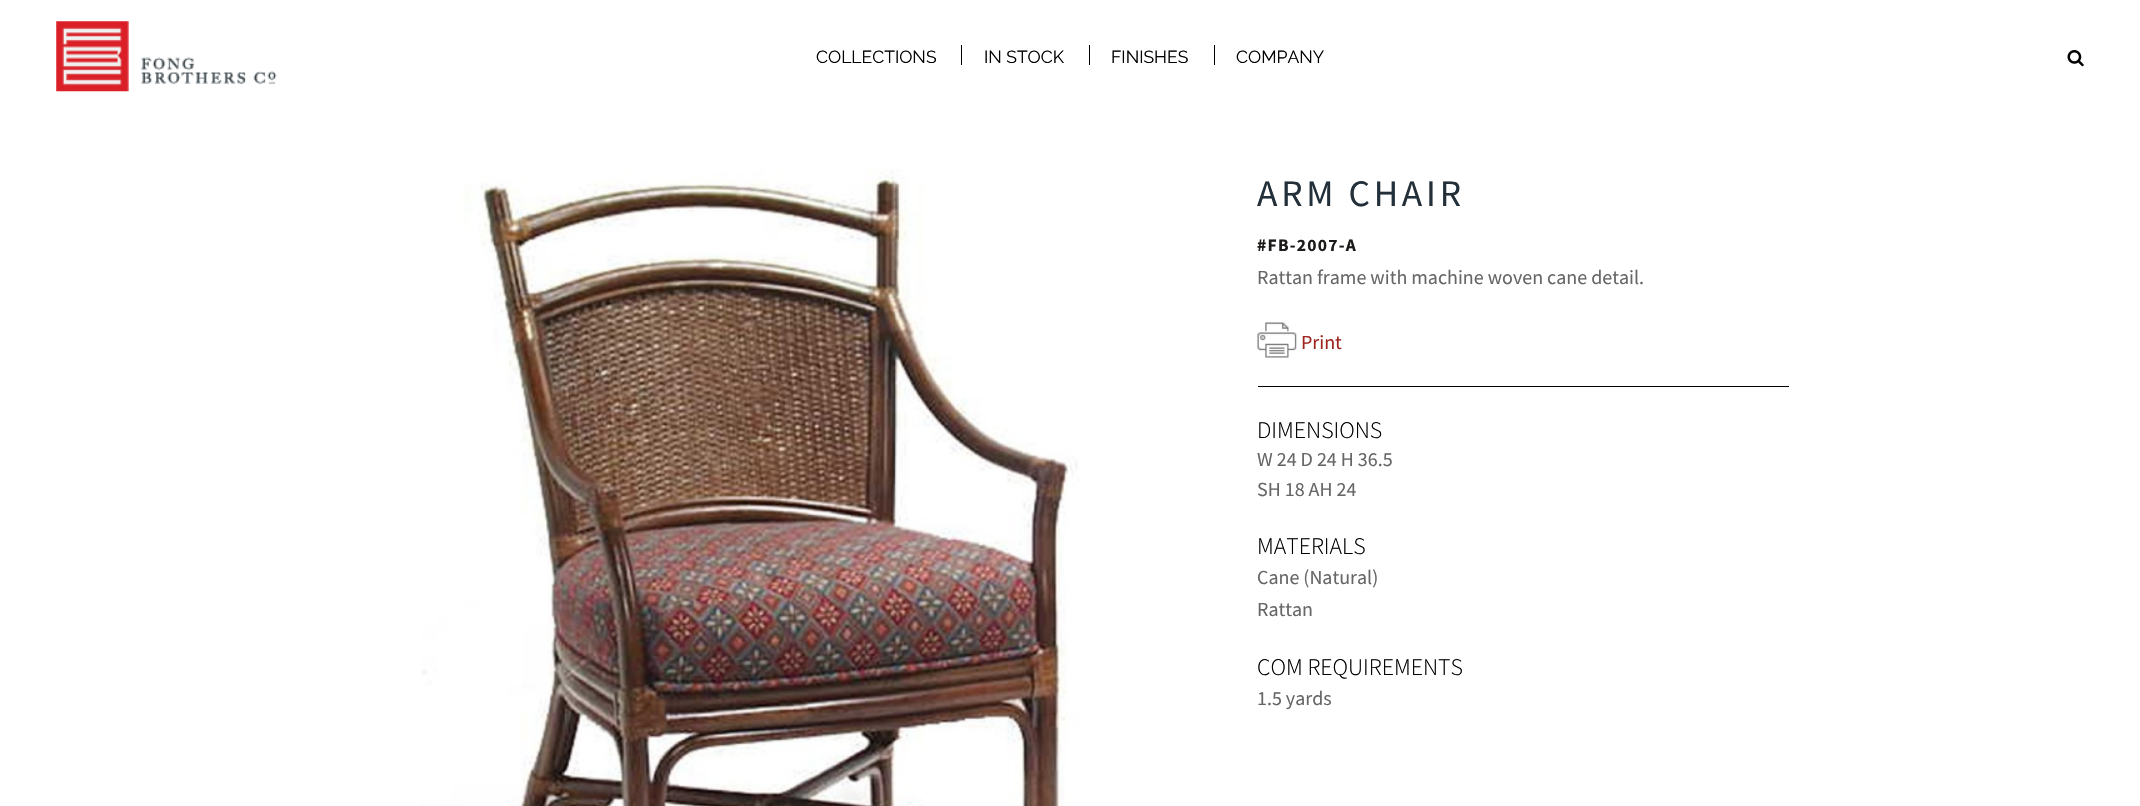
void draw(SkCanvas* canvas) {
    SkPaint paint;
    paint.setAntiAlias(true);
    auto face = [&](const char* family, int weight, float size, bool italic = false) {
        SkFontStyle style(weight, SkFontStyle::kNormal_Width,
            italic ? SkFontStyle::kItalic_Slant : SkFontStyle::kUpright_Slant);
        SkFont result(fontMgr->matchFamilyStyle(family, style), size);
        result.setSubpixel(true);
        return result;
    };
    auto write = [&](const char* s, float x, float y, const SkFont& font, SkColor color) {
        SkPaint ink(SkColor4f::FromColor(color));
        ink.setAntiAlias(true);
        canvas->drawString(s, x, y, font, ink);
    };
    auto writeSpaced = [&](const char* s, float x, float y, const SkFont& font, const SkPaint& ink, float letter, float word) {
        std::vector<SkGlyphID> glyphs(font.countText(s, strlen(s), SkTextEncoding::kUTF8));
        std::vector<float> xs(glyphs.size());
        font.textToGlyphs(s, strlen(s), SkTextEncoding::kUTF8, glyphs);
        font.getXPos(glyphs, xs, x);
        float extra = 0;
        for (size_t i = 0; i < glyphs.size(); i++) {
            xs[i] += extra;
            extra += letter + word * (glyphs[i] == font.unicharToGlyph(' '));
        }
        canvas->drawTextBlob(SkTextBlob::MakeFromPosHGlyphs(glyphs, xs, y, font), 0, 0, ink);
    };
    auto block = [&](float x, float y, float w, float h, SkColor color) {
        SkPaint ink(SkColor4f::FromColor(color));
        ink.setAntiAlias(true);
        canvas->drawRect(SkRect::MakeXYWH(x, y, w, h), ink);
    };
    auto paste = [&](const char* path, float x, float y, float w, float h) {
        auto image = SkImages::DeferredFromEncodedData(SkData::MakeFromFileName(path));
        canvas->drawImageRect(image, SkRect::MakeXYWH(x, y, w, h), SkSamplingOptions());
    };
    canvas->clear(SK_ColorWHITE);
    paste("pic1.png", 56, 21, 221, 71);
    auto kFont1 = face("Raleway", 400, 17.5f);
    write("COLLECTIONS", 816, 63, kFont1, SK_ColorBLACK);
    block(961, 45, 1, 20, SK_ColorBLACK);
    write("IN STOCK", 984, 63, kFont1, SK_ColorBLACK);
    block(1089, 45, 1, 20, SK_ColorBLACK);
    write("FINISHES", 1111, 63, kFont1, SK_ColorBLACK);
    block(1214, 45, 1, 20, SK_ColorBLACK);
    write("COMPANY", 1236, 63, kFont1, SK_ColorBLACK);
    paste("pic2.png", 2067, 50, 17, 17);
    paste("pic3.png", 421, 169, 658, 637);
    auto kFont2 = face("Source Sans Pro", 400, 37.5f);
    paint.setColor(SkColorSetRGB(35, 48, 58));
    writeSpaced("ARM CHAIR", 1257, 206, kFont2, paint, 3.75f, 0);
    auto kFont3 = face("Source Sans Pro", 700, 17.5f);
    paint.setColor(SkColorSetRGB(28, 27, 25));
    writeSpaced("#FB-2007-A", 1257, 251, kFont3, paint, 1.25f, 0);
    auto kFont4 = face("Source Sans Pro", 400, 20);
    write("Rattan frame with machine woven cane detail.", 1257, 284, kFont4, SkColorSetRGB(102, 102, 102));
    paste("pic4.png", 1257, 322, 40, 36);
    write("Print", 1301, 349, kFont4, SkColorSetRGB(157, 37, 31));
    block(1258, 386, 531, 1, SK_ColorBLACK);
    auto kFont5 = face("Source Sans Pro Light", 300, 23.75f);
    write("DIMENSIONS", 1257, 438, kFont5, SK_ColorBLACK);
    write("W 24 D 24 H 36.5", 1257, 466, kFont4, SkColorSetRGB(102, 102, 102));
    write("SH 18 AH 24", 1257, 496, kFont4, SkColorSetRGB(102, 102, 102));
    write("MATERIALS", 1257, 554, kFont5, SK_ColorBLACK);
    write("Cane (Natural)", 1257, 584, kFont4, SkColorSetRGB(102, 102, 102));
    write("Rattan", 1257, 616, kFont4, SkColorSetRGB(102, 102, 102));
    write("COM REQUIREMENTS", 1257, 675, kFont5, SK_ColorBLACK);
    write("1.5 yards", 1257, 705, kFont4, SkColorSetRGB(102, 102, 102));
}
